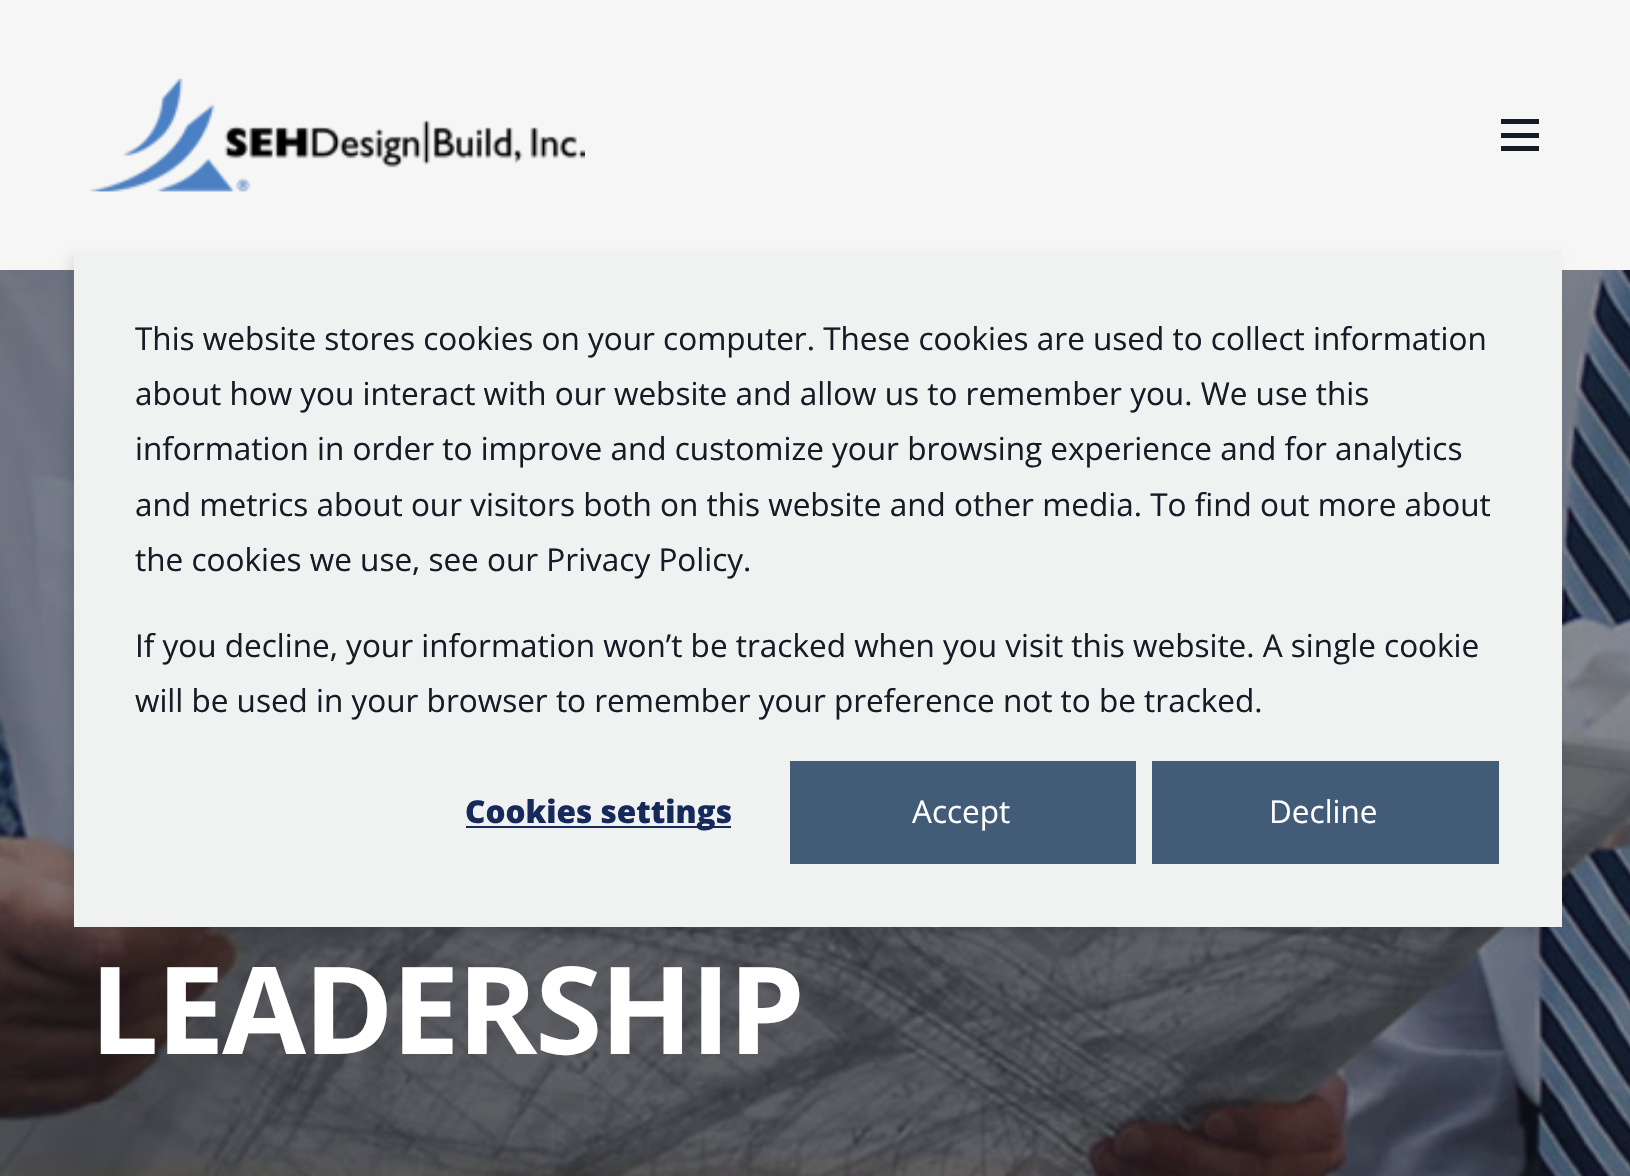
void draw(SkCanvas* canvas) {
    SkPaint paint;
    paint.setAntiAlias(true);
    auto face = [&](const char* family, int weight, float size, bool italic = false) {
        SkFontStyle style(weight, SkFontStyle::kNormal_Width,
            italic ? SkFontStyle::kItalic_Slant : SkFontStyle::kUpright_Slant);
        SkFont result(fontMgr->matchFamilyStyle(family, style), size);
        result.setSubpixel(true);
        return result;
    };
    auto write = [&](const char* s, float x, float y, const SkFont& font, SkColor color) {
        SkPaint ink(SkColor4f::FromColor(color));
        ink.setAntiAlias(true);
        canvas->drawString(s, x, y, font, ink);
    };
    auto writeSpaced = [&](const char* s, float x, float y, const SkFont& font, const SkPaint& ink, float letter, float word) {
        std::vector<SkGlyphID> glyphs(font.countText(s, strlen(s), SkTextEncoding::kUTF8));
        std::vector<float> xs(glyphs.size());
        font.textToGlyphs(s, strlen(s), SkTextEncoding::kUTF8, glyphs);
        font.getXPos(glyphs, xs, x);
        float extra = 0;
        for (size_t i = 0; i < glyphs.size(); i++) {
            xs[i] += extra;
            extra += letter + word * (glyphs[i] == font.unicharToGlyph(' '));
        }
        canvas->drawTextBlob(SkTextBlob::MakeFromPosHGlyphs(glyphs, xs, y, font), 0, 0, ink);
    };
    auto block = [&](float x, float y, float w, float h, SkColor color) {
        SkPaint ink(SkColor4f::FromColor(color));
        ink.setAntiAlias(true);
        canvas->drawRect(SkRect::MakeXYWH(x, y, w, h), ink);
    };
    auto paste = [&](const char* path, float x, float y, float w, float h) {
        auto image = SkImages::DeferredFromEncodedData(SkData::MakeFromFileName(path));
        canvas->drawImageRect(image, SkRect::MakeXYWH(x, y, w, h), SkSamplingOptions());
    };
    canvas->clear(SK_ColorWHITE);
    block(0, 0, 1630, 270, SkColorSetRGB(246, 246, 246));
    paste("pic2.png", 0, 270, 1630, 906);
    paint.setColor(SkColorSetARGB(26, 0, 0, 0));
    paint.setMaskFilter(SkMaskFilter::MakeBlur(kNormal_SkBlurStyle, 5.5f));
    canvas->drawRect(SkRect::MakeXYWH(70, 257, 1487, 677), paint);
    paint.setMaskFilter(nullptr);
    block(74, 250, 1488, 677, SkColorSetRGB(240, 241, 241));
    auto kFont1 = face("Open Sans", 400, 31.5f);
    write("This website stores cookies on your computer. These cookies are used to collect information", 135, 350, kFont1, SkColorSetRGB(23, 27, 37));
    write("about how you interact with our website and allow us to remember you. We use this", 135, 405, kFont1, SkColorSetRGB(23, 27, 37));
    write("information in order to improve and customize your browsing experience and for analytics", 135, 460, kFont1, SkColorSetRGB(23, 27, 37));
    write("and metrics about our visitors both on this website and other media. To find out more about", 135, 516, kFont1, SkColorSetRGB(23, 27, 37));
    write("the cookies we use, see our Privacy Policy.", 135, 571, kFont1, SkColorSetRGB(23, 27, 37));
    write("If you decline, your information won’t be tracked when you visit this website. A single cookie", 135, 657, kFont1, SkColorSetRGB(23, 27, 37));
    write("will be used in your browser to remember your preference not to be tracked.", 135, 712, kFont1, SkColorSetRGB(23, 27, 37));
    block(466, 826, 265, 2, SkColorSetRGB(21, 41, 90));
    auto kFont2 = face("Open Sans", 800, 31.5f);
    write("Cookies settings", 465, 823, kFont2, SkColorSetRGB(21, 41, 90));
    block(790, 761, 346, 103, SkColorSetRGB(66, 91, 118));
    write("Accept", 912, 823, kFont1, SK_ColorWHITE);
    block(1152, 761, 347, 103, SkColorSetRGB(66, 91, 118));
    write("Decline", 1269, 823, kFont1, SK_ColorWHITE);
    paste("pic1.png", 90, 78, 495, 114);
    block(1501, 119, 38, 5, SkColorSetRGB(23, 27, 37));
    block(1501, 133, 38, 5, SkColorSetRGB(23, 27, 37));
    block(1501, 146, 38, 5, SkColorSetRGB(23, 27, 37));
    auto kFont3 = face("Open Sans", 700, 121.5f);
    paint.setColor(SK_ColorWHITE);
    writeSpaced("LEADERSHIP", 90, 1054, kFont3, paint, -2.25f, 0);
}
